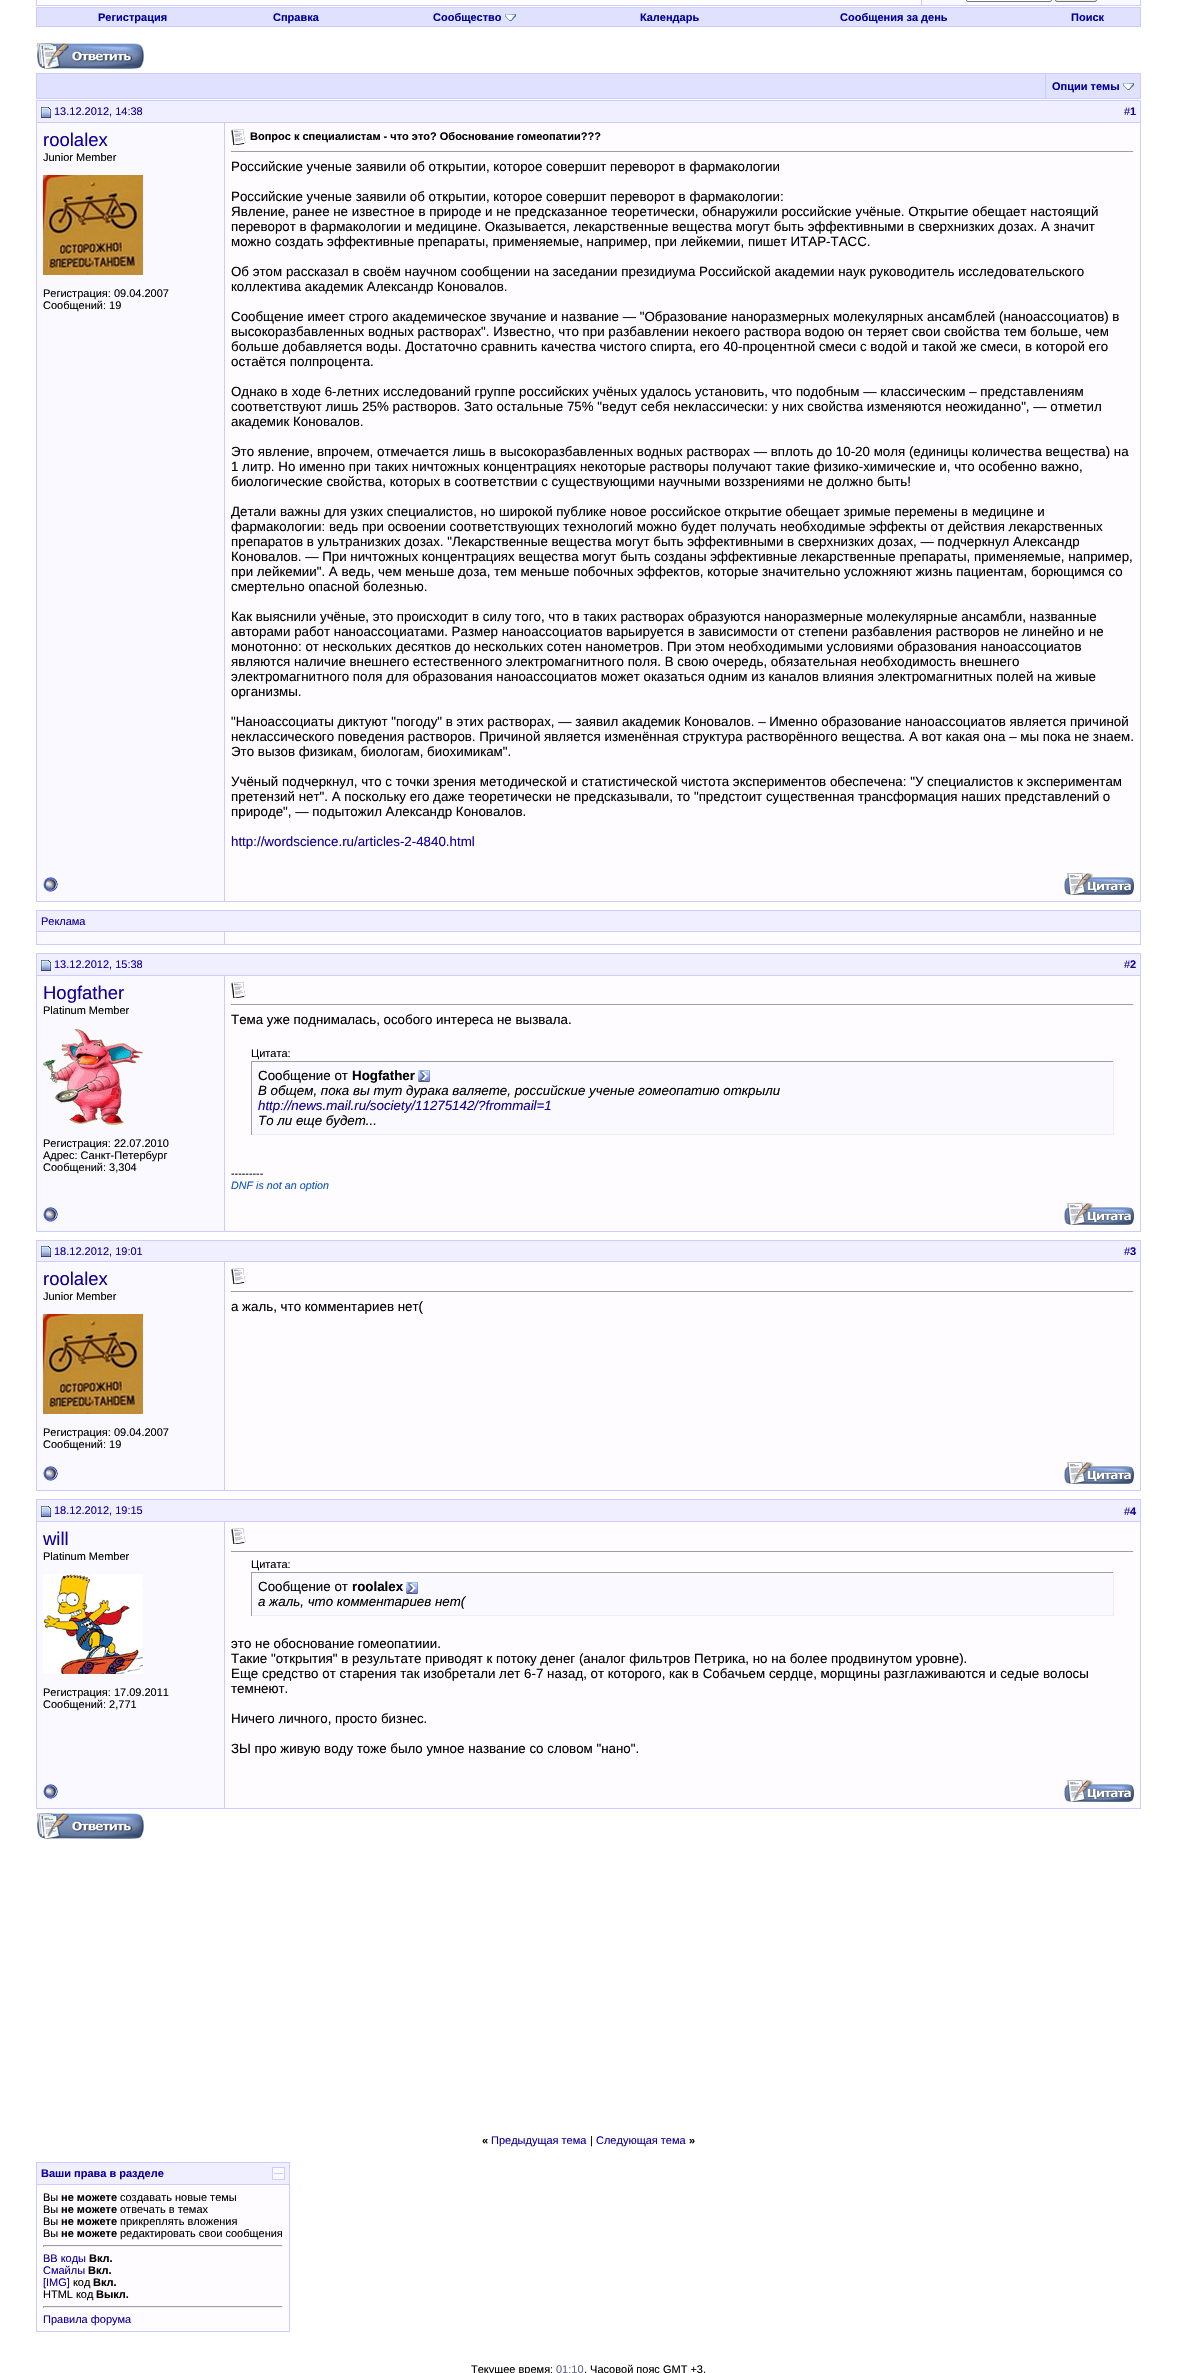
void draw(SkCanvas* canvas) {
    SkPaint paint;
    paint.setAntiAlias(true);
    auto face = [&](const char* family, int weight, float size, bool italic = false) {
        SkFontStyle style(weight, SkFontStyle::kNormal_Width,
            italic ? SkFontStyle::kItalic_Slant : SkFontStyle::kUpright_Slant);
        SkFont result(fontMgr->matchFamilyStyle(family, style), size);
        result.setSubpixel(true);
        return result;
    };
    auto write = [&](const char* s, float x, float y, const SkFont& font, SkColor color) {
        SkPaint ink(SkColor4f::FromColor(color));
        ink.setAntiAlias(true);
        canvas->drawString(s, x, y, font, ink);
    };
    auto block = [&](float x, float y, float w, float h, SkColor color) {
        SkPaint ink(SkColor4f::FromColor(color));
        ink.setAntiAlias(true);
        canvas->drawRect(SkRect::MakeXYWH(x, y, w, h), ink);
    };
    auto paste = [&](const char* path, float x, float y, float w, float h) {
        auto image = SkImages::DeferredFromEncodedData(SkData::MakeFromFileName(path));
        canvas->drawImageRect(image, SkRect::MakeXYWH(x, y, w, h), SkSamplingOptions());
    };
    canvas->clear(SK_ColorWHITE);
    paint.setColor(SkColorSetRGB(204, 204, 255));
    canvas->drawRect(SkRect::MakeXYWH(35.5f, -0.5f, 1106, 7), paint);
    paint.setStyle(SkPaint::kStroke_Style);
    paint.setStrokeWidth(1);
    paint.setColor(SK_ColorWHITE);
    canvas->drawRect(SkRect::MakeXYWH(35.5f, -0.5f, 1106, 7), paint);
    block(37, 0, 884, 5, SkColorSetRGB(254, 252, 255));
    block(922, 0, 218, 5, SkColorSetRGB(249, 249, 255));
    paint.setStyle(SkPaint::kFill_Style);
    canvas->drawRoundRect(SkRect::MakeXYWH(966.5f, -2.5f, 85, 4), 1.5f, 1.5f, paint);
    paint.setStyle(SkPaint::kStroke_Style);
    paint.setColor(SkColorSetRGB(118, 118, 118));
    canvas->drawRoundRect(SkRect::MakeXYWH(966.5f, -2.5f, 85, 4), 1.5f, 1.5f, paint);
    paint.setStyle(SkPaint::kFill_Style);
    paint.setColor(SkColorSetRGB(239, 239, 239));
    canvas->drawRoundRect(SkRect::MakeXYWH(1055.5f, -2.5f, 41, 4), 1.5f, 1.5f, paint);
    paint.setStyle(SkPaint::kStroke_Style);
    paint.setColor(SkColorSetRGB(118, 118, 118));
    canvas->drawRoundRect(SkRect::MakeXYWH(1055.5f, -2.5f, 41, 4), 1.5f, 1.5f, paint);
    block(36, 7, 1105, 20, SkColorSetRGB(204, 204, 255));
    block(37, 8, 1103, 18, SkColorSetRGB(224, 224, 255));
    auto kFont1 = face("Liberation Sans", 700, 11);
    write("Регистрация", 98, 21, kFont1, SkColorSetRGB(0, 0, 153));
    write("Справка", 273, 21, kFont1, SkColorSetRGB(0, 0, 153));
    write("Сообщество", 433, 21, kFont1, SkColorSetRGB(0, 0, 153));
    paste("pic1.png", 505, 14, 11, 7);
    write("Календарь", 640, 21, kFont1, SkColorSetRGB(0, 0, 153));
    write("Сообщения за день", 840, 21, kFont1, SkColorSetRGB(0, 0, 153));
    write("Поиск", 1071, 21, kFont1, SkColorSetRGB(0, 0, 153));
    paste("pic2.png", 36, 43, 108, 26);
    block(36, 73, 1105, 26, SkColorSetRGB(204, 204, 255));
    block(37, 74, 1008, 24, SkColorSetRGB(224, 224, 255));
    block(1046, 74, 94, 24, SkColorSetRGB(224, 224, 255));
    write("Опции темы", 1052, 90, kFont1, SkColorSetRGB(0, 0, 153));
    paste("pic1.png", 1123, 83, 11, 7);
    block(37, 101, 1103, 21, SkColorSetRGB(239, 239, 255));
    block(36, 100, 1105, 1, SkColorSetRGB(204, 204, 255));
    block(36, 122, 189, 1, SkColorSetRGB(204, 204, 255));
    block(36, 100, 1, 767, SkColorSetRGB(204, 204, 255));
    paste("pic3.png", 41, 107, 10, 11);
    auto kFont2 = face("Liberation Sans", 400, 11);
    write("13.12.2012, 14:38", 54, 115, kFont2, SkColorSetRGB(17, 0, 153));
    block(1140, 100, 1, 802, SkColorSetRGB(204, 204, 255));
    block(225, 122, 916, 1, SkColorSetRGB(204, 204, 255));
    write("#", 1124, 115, kFont2, SkColorSetRGB(17, 0, 153));
    write("1", 1130, 115, kFont1, SkColorSetRGB(17, 0, 153));
    block(37, 123, 187, 778, SkColorSetRGB(249, 249, 255));
    block(224, 123, 1, 779, SkColorSetRGB(204, 204, 255));
    auto kFont3 = face("Liberation Sans", 400, 18.5f);
    write("roolalex", 43, 146, kFont3, SkColorSetRGB(17, 0, 153));
    write("Junior Member", 43, 161, kFont2, SK_ColorBLACK);
    paste("pic4.png", 43, 175, 100, 100);
    write("Регистрация: 09.04.2007", 43, 297, kFont2, SK_ColorBLACK);
    write("Сообщений: 19", 43, 309, kFont2, SK_ColorBLACK);
    block(225, 123, 915, 778, SkColorSetRGB(254, 252, 255));
    paste("pic5.png", 231, 129, 15, 16);
    write("Вопрос к специалистам - что это? Обоснование гомеопатии?\077?", 250, 140, kFont1, SK_ColorBLACK);
    block(231, 151, 903, 1, SkColorSetRGB(159, 159, 159));
    block(1133, 151, 1, 1, SkColorSetRGB(238, 238, 238));
    auto kFont4 = face("Liberation Sans", 400, 13.33f);
    write("Российские ученые заявили об открытии, которое совершит переворот в фармакологии", 231, 171, kFont4, SK_ColorBLACK);
    write("Российские ученые заявили об открытии, которое совершит переворот в фармакологии:", 231, 201, kFont4, SK_ColorBLACK);
    write("Явление, ранее не известное в природе и не предсказанное теоретически, обнаружили российские учёные. Открытие обещает настоящий", 231, 216, kFont4, SK_ColorBLACK);
    write("переворот в фармакологии и медицине. Оказывается, лекарственные вещества могут быть эффективными в сверхнизких дозах. А значит", 231, 231, kFont4, SK_ColorBLACK);
    write("можно создать эффективные препараты, применяемые, например, при лейкемии, пишет ИТАР-ТАСС.", 231, 246, kFont4, SK_ColorBLACK);
    write("Об этом рассказал в своём научном сообщении на заседании президиума Российской академии наук руководитель исследовательского", 231, 276, kFont4, SK_ColorBLACK);
    write("коллектива академик Александр Коновалов.", 231, 291, kFont4, SK_ColorBLACK);
    write("Сообщение имеет строго академическое звучание и название — \"Образование наноразмерных молекулярных ансамблей (наноассоциатов) в", 231, 321, kFont4, SK_ColorBLACK);
    write("высокоразбавленных водных растворах\". Известно, что при разбавлении некоего раствора водою он теряет свои свойства тем больше, чем", 231, 336, kFont4, SK_ColorBLACK);
    write("больше добавляется воды. Достаточно сравнить качества чистого спирта, его 40-процентной смеси с водой и такой же смеси, в которой его", 231, 351, kFont4, SK_ColorBLACK);
    write("остаётся полпроцента.", 231, 366, kFont4, SK_ColorBLACK);
    write("Однако в ходе 6-летних исследований группе российских учёных удалось установить, что подобным — классическим – представлениям", 231, 396, kFont4, SK_ColorBLACK);
    write("соответствуют лишь 25% растворов. Зато остальные 75% \"ведут себя неклассически: у них свойства изменяются неожиданно\", — отметил", 231, 411, kFont4, SK_ColorBLACK);
    write("академик Коновалов.", 231, 426, kFont4, SK_ColorBLACK);
    write("Это явление, впрочем, отмечается лишь в высокоразбавленных водных растворах — вплоть до 10-20 моля (единицы количества вещества) на", 231, 456, kFont4, SK_ColorBLACK);
    write("1 литр. Но именно при таких ничтожных концентрациях некоторые растворы получают такие физико-химические и, что особенно важно,", 231, 471, kFont4, SK_ColorBLACK);
    write("биологические свойства, которых в соответствии с существующими научными воззрениями не должно быть!", 231, 486, kFont4, SK_ColorBLACK);
    write("Детали важны для узких специалистов, но широкой публике новое российское открытие обещает зримые перемены в медицине и", 231, 516, kFont4, SK_ColorBLACK);
    write("фармакологии: ведь при освоении соответствующих технологий можно будет получать необходимые эффекты от действия лекарственных", 231, 531, kFont4, SK_ColorBLACK);
    write("препаратов в ультранизких дозах. \"Лекарственные вещества могут быть эффективными в сверхнизких дозах, — подчеркнул Александр", 231, 546, kFont4, SK_ColorBLACK);
    write("Коновалов. — При ничтожных концентрациях вещества могут быть созданы эффективные лекарственные препараты, применяемые, например,", 231, 561, kFont4, SK_ColorBLACK);
    write("при лейкемии\". А ведь, чем меньше доза, тем меньше побочных эффектов, которые значительно усложняют жизнь пациентам, борющимся со", 231, 576, kFont4, SK_ColorBLACK);
    write("смертельно опасной болезнью.", 231, 591, kFont4, SK_ColorBLACK);
    write("Как выяснили учёные, это происходит в силу того, что в таких растворах образуются наноразмерные молекулярные ансамбли, названные", 231, 621, kFont4, SK_ColorBLACK);
    write("авторами работ наноассоциатами. Размер наноассоциатов варьируется в зависимости от степени разбавления растворов не линейно и не", 231, 636, kFont4, SK_ColorBLACK);
    write("монотонно: от нескольких десятков до нескольких сотен нанометров. При этом необходимыми условиями образования наноассоциатов", 231, 651, kFont4, SK_ColorBLACK);
    write("являются наличие внешнего естественного электромагнитного поля. В свою очередь, обязательная необходимость внешнего", 231, 666, kFont4, SK_ColorBLACK);
    write("электромагнитного поля для образования наноассоциатов может оказаться одним из каналов влияния электромагнитных полей на живые", 231, 681, kFont4, SK_ColorBLACK);
    write("организмы.", 231, 696, kFont4, SK_ColorBLACK);
    write("\"Наноассоциаты диктуют \"погоду\" в этих растворах, — заявил академик Коновалов. – Именно образование наноассоциатов является причиной", 231, 726, kFont4, SK_ColorBLACK);
    write("неклассического поведения растворов. Причиной является изменённая структура растворённого вещества. А вот какая она – мы пока не знаем.", 231, 741, kFont4, SK_ColorBLACK);
    write("Это вызов физикам, биологам, биохимикам\".", 231, 756, kFont4, SK_ColorBLACK);
    write("Учёный подчеркнул, что с точки зрения методической и статистической чистота экспериментов обеспечена: \"У специалистов к экспериментам", 231, 786, kFont4, SK_ColorBLACK);
    write("претензий нет\". А поскольку его даже теоретически не предсказывали, то \"предстоит существенная трансформация наших представлений о", 231, 801, kFont4, SK_ColorBLACK);
    write("природе\", — подытожил Александр Коновалов.", 231, 816, kFont4, SK_ColorBLACK);
    write("http://wordscience.ru/articles-2-4840.html", 231, 846, kFont4, SkColorSetRGB(17, 0, 153));
    block(36, 901, 1105, 1, SkColorSetRGB(204, 204, 255));
    block(36, 867, 1, 35, SkColorSetRGB(204, 204, 255));
    paste("pic6.png", 43, 877, 15, 15);
    paste("pic7.png", 1064, 873, 70, 22);
    paint.setStyle(SkPaint::kFill_Style);
    paint.setColor(SkColorSetRGB(239, 239, 255));
    canvas->drawRect(SkRect::MakeXYWH(36.5f, 910.5f, 1104, 21), paint);
    paint.setStyle(SkPaint::kStroke_Style);
    paint.setColor(SkColorSetRGB(204, 204, 255));
    canvas->drawRect(SkRect::MakeXYWH(36.5f, 910.5f, 1104, 21), paint);
    write("Реклама", 41, 925, kFont2, SkColorSetRGB(17, 0, 153));
    block(37, 932, 187, 12, SkColorSetRGB(249, 249, 255));
    block(36, 944, 188, 1, SkColorSetRGB(204, 204, 255));
    block(36, 932, 1, 13, SkColorSetRGB(204, 204, 255));
    block(225, 932, 915, 12, SkColorSetRGB(254, 252, 255));
    block(1140, 932, 1, 13, SkColorSetRGB(204, 204, 255));
    block(224, 944, 917, 1, SkColorSetRGB(204, 204, 255));
    block(224, 932, 1, 13, SkColorSetRGB(204, 204, 255));
    block(37, 954, 1103, 21, SkColorSetRGB(239, 239, 255));
    block(36, 953, 1105, 1, SkColorSetRGB(204, 204, 255));
    block(36, 975, 189, 1, SkColorSetRGB(204, 204, 255));
    block(36, 953, 1, 244, SkColorSetRGB(204, 204, 255));
    paste("pic3.png", 41, 960, 10, 11);
    write("13.12.2012, 15:38", 54, 968, kFont2, SkColorSetRGB(17, 0, 153));
    block(1140, 953, 1, 279, SkColorSetRGB(204, 204, 255));
    block(225, 975, 916, 1, SkColorSetRGB(204, 204, 255));
    write("#", 1124, 968, kFont2, SkColorSetRGB(17, 0, 153));
    write("2", 1130, 968, kFont1, SkColorSetRGB(17, 0, 153));
    block(37, 976, 187, 255, SkColorSetRGB(249, 249, 255));
    block(224, 976, 1, 256, SkColorSetRGB(204, 204, 255));
    write("Hogfather", 43, 999, kFont3, SkColorSetRGB(17, 0, 153));
    write("Platinum Member", 43, 1014, kFont2, SK_ColorBLACK);
    paste("pic8.png", 43, 1029, 100, 96);
    write("Регистрация: 22.07.2010", 43, 1147, kFont2, SK_ColorBLACK);
    write("Адрес: Санкт-Петербург", 43, 1159, kFont2, SK_ColorBLACK);
    write("Сообщений: 3,304", 43, 1171, kFont2, SK_ColorBLACK);
    block(225, 976, 915, 255, SkColorSetRGB(254, 252, 255));
    paste("pic5.png", 231, 982, 15, 16);
    block(231, 1004, 903, 1, SkColorSetRGB(159, 159, 159));
    block(1133, 1004, 1, 1, SkColorSetRGB(238, 238, 238));
    write("Тема уже поднималась, особого интереса не вызвала.", 231, 1024, kFont4, SK_ColorBLACK);
    write("Цитата:", 251, 1057, kFont2, SK_ColorBLACK);
    block(252, 1062, 861, 72, SkColorSetRGB(249, 249, 255));
    block(251, 1061, 863, 1, SkColorSetRGB(159, 159, 159));
    block(1113, 1061, 1, 74, SkColorSetRGB(238, 238, 238));
    block(251, 1134, 863, 1, SkColorSetRGB(238, 238, 238));
    block(251, 1061, 1, 74, SkColorSetRGB(159, 159, 159));
    write("Сообщение от", 258, 1080, kFont4, SK_ColorBLACK);
    auto kFont5 = face("Liberation Sans", 700, 13.33f);
    write("Hogfather", 352, 1080, kFont5, SK_ColorBLACK);
    paste("pic9.png", 418, 1070, 12, 12);
    auto kFont6 = face("Liberation Sans", 400, 13.33f, true);
    write("В общем, пока вы тут дурака валяете, российские ученые гомеопатию открыли", 258, 1095, kFont6, SK_ColorBLACK);
    write("http://news.mail.ru/society/11275142/?frommail=1", 258, 1110, kFont6, SkColorSetRGB(17, 0, 153));
    write("То ли еще будет...", 258, 1125, kFont6, SK_ColorBLACK);
    auto kFont7 = face("Liberation Sans", 400, 10.75f);
    write("---------", 231, 1177, kFont7, SK_ColorBLACK);
    auto kFont8 = face("Liberation Sans", 400, 10.75f, true);
    write("DNF is not an option", 231, 1189, kFont8, SkColorSetRGB(17, 85, 187));
    block(36, 1231, 1105, 1, SkColorSetRGB(204, 204, 255));
    block(36, 1197, 1, 35, SkColorSetRGB(204, 204, 255));
    paste("pic6.png", 43, 1207, 15, 15);
    paste("pic7.png", 1064, 1203, 70, 22);
    block(37, 1241, 1103, 20, SkColorSetRGB(239, 239, 255));
    block(36, 1240, 1105, 1, SkColorSetRGB(204, 204, 255));
    block(36, 1261, 189, 1, SkColorSetRGB(204, 204, 255));
    block(36, 1240, 1, 216, SkColorSetRGB(204, 204, 255));
    paste("pic3.png", 41, 1246, 10, 11);
    write("18.12.2012, 19:01", 54, 1255, kFont2, SkColorSetRGB(17, 0, 153));
    block(1140, 1240, 1, 251, SkColorSetRGB(204, 204, 255));
    block(225, 1261, 916, 1, SkColorSetRGB(204, 204, 255));
    write("#", 1124, 1255, kFont2, SkColorSetRGB(17, 0, 153));
    write("3", 1130, 1255, kFont1, SkColorSetRGB(17, 0, 153));
    block(37, 1262, 187, 228, SkColorSetRGB(249, 249, 255));
    block(224, 1262, 1, 229, SkColorSetRGB(204, 204, 255));
    write("roolalex", 43, 1285, kFont3, SkColorSetRGB(17, 0, 153));
    write("Junior Member", 43, 1300, kFont2, SK_ColorBLACK);
    paste("pic4.png", 43, 1314, 100, 100);
    write("Регистрация: 09.04.2007", 43, 1436, kFont2, SK_ColorBLACK);
    write("Сообщений: 19", 43, 1448, kFont2, SK_ColorBLACK);
    block(225, 1262, 915, 228, SkColorSetRGB(254, 252, 255));
    paste("pic5.png", 231, 1268, 15, 16);
    block(231, 1291, 903, 1, SkColorSetRGB(159, 159, 159));
    block(1133, 1291, 1, 1, SkColorSetRGB(238, 238, 238));
    write("а жаль, что комментариев нет(", 231, 1311, kFont4, SK_ColorBLACK);
    block(36, 1490, 1105, 1, SkColorSetRGB(204, 204, 255));
    block(36, 1456, 1, 35, SkColorSetRGB(204, 204, 255));
    paste("pic6.png", 43, 1466, 15, 15);
    paste("pic7.png", 1064, 1462, 70, 22);
    block(37, 1500, 1103, 21, SkColorSetRGB(239, 239, 255));
    block(36, 1499, 1105, 1, SkColorSetRGB(204, 204, 255));
    block(36, 1521, 189, 1, SkColorSetRGB(204, 204, 255));
    block(36, 1499, 1, 275, SkColorSetRGB(204, 204, 255));
    paste("pic3.png", 41, 1506, 10, 11);
    write("18.12.2012, 19:15", 54, 1514, kFont2, SkColorSetRGB(17, 0, 153));
    block(1140, 1499, 1, 310, SkColorSetRGB(204, 204, 255));
    block(225, 1521, 916, 1, SkColorSetRGB(204, 204, 255));
    write("#", 1124, 1515, kFont2, SkColorSetRGB(17, 0, 153));
    write("4", 1130, 1515, kFont1, SkColorSetRGB(17, 0, 153));
    block(37, 1522, 187, 286, SkColorSetRGB(249, 249, 255));
    block(224, 1522, 1, 287, SkColorSetRGB(204, 204, 255));
    write("will", 43, 1545, kFont3, SkColorSetRGB(17, 0, 153));
    write("Platinum Member", 43, 1560, kFont2, SK_ColorBLACK);
    paste("pic10.png", 43, 1574, 100, 100);
    write("Регистрация: 17.09.2011", 43, 1696, kFont2, SK_ColorBLACK);
    write("Сообщений: 2,771", 43, 1708, kFont2, SK_ColorBLACK);
    block(225, 1522, 915, 286, SkColorSetRGB(254, 252, 255));
    paste("pic5.png", 231, 1528, 15, 16);
    block(231, 1551, 903, 1, SkColorSetRGB(159, 159, 159));
    block(1133, 1551, 1, 1, SkColorSetRGB(238, 238, 238));
    write("Цитата:", 251, 1568, kFont2, SK_ColorBLACK);
    block(252, 1573, 861, 42, SkColorSetRGB(249, 249, 255));
    block(251, 1572, 863, 1, SkColorSetRGB(159, 159, 159));
    block(1113, 1572, 1, 44, SkColorSetRGB(238, 238, 238));
    block(251, 1615, 863, 1, SkColorSetRGB(238, 238, 238));
    block(251, 1572, 1, 44, SkColorSetRGB(159, 159, 159));
    write("Сообщение от", 258, 1591, kFont4, SK_ColorBLACK);
    write("roolalex", 352, 1591, kFont5, SK_ColorBLACK);
    paste("pic9.png", 406, 1582, 12, 12);
    write("а жаль, что комментариев нет(", 258, 1606, kFont6, SK_ColorBLACK);
    write("это не обоснование гомеопатиии.", 231, 1648, kFont4, SK_ColorBLACK);
    write("Такие \"открытия\" в результате приводят к потоку денег (аналог фильтров Петрика, но на более продвинутом уровне).", 231, 1663, kFont4, SK_ColorBLACK);
    write("Еще средство от старения так изобретали лет 6-7 назад, от которого, как в Собачьем сердце, морщины разглаживаются и седые волосы", 231, 1678, kFont4, SK_ColorBLACK);
    write("темнеют.", 231, 1693, kFont4, SK_ColorBLACK);
    write("Ничего личного, просто бизнес.", 231, 1723, kFont4, SK_ColorBLACK);
    write("ЗЫ про живую воду тоже было умное название со словом \"нано\".", 231, 1753, kFont4, SK_ColorBLACK);
    block(36, 1808, 1105, 1, SkColorSetRGB(204, 204, 255));
    block(36, 1774, 1, 35, SkColorSetRGB(204, 204, 255));
    paste("pic6.png", 43, 1784, 15, 15);
    paste("pic7.png", 1064, 1780, 70, 22);
    paste("pic2.png", 36, 1813, 108, 26);
    write("«", 482, 2144, kFont1, SK_ColorBLACK);
    write("Предыдущая тема", 491, 2144, kFont2, SkColorSetRGB(17, 0, 153));
    write("|", 590, 2144, kFont2, SK_ColorBLACK);
    write("Следующая тема", 596, 2144, kFont2, SkColorSetRGB(17, 0, 153));
    write("»", 689, 2144, kFont1, SK_ColorBLACK);
    block(36, 2162, 254, 170, SkColorSetRGB(204, 204, 255));
    block(37, 2163, 252, 21, SkColorSetRGB(239, 239, 255));
    write("Ваши права в разделе", 41, 2177, kFont1, SkColorSetRGB(17, 0, 153));
    paste("pic11.png", 272, 2167, 13, 13);
    block(37, 2185, 252, 146, SkColorSetRGB(254, 252, 255));
    write("Вы", 43, 2201, kFont2, SK_ColorBLACK);
    write("не можете", 61, 2201, kFont1, SK_ColorBLACK);
    write("создавать новые темы", 120, 2201, kFont2, SK_ColorBLACK);
    write("Вы", 43, 2213, kFont2, SK_ColorBLACK);
    write("не можете", 61, 2213, kFont1, SK_ColorBLACK);
    write("отвечать в темах", 120, 2213, kFont2, SK_ColorBLACK);
    write("Вы", 43, 2225, kFont2, SK_ColorBLACK);
    write("не можете", 61, 2225, kFont1, SK_ColorBLACK);
    write("прикреплять вложения", 120, 2225, kFont2, SK_ColorBLACK);
    write("Вы", 43, 2237, kFont2, SK_ColorBLACK);
    write("не можете", 61, 2237, kFont1, SK_ColorBLACK);
    write("редактировать свои сообщения", 120, 2237, kFont2, SK_ColorBLACK);
    block(43, 2245, 240, 1, SkColorSetRGB(159, 159, 159));
    block(282, 2245, 1, 2, SkColorSetRGB(238, 238, 238));
    block(43, 2246, 240, 1, SkColorSetRGB(238, 238, 238));
    block(43, 2245, 1, 2, SkColorSetRGB(159, 159, 159));
    write("BB коды", 43, 2262, kFont2, SkColorSetRGB(17, 0, 153));
    write("Вкл.", 89, 2262, kFont1, SK_ColorBLACK);
    write("Смайлы", 43, 2274, kFont2, SkColorSetRGB(17, 0, 153));
    write("Вкл.", 88, 2274, kFont1, SK_ColorBLACK);
    write("[IMG]", 43, 2286, kFont2, SkColorSetRGB(17, 0, 153));
    write("код", 73, 2286, kFont2, SK_ColorBLACK);
    write("Вкл.", 93, 2286, kFont1, SK_ColorBLACK);
    write("HTML код", 43, 2298, kFont2, SK_ColorBLACK);
    write("Выкл.", 96, 2298, kFont1, SK_ColorBLACK);
    block(43, 2306, 240, 1, SkColorSetRGB(159, 159, 159));
    block(282, 2306, 1, 2, SkColorSetRGB(238, 238, 238));
    block(43, 2307, 240, 1, SkColorSetRGB(238, 238, 238));
    block(43, 2306, 1, 2, SkColorSetRGB(159, 159, 159));
    write("Правила форума", 43, 2323, kFont2, SkColorSetRGB(17, 0, 153));
    write("Текущее время:", 471, 2373, kFont2, SK_ColorBLACK);
    write("01:10", 556, 2373, kFont2, SkColorSetRGB(102, 102, 134));
    write(". Часовой пояс GMT +3.", 584, 2373, kFont2, SK_ColorBLACK);
}
